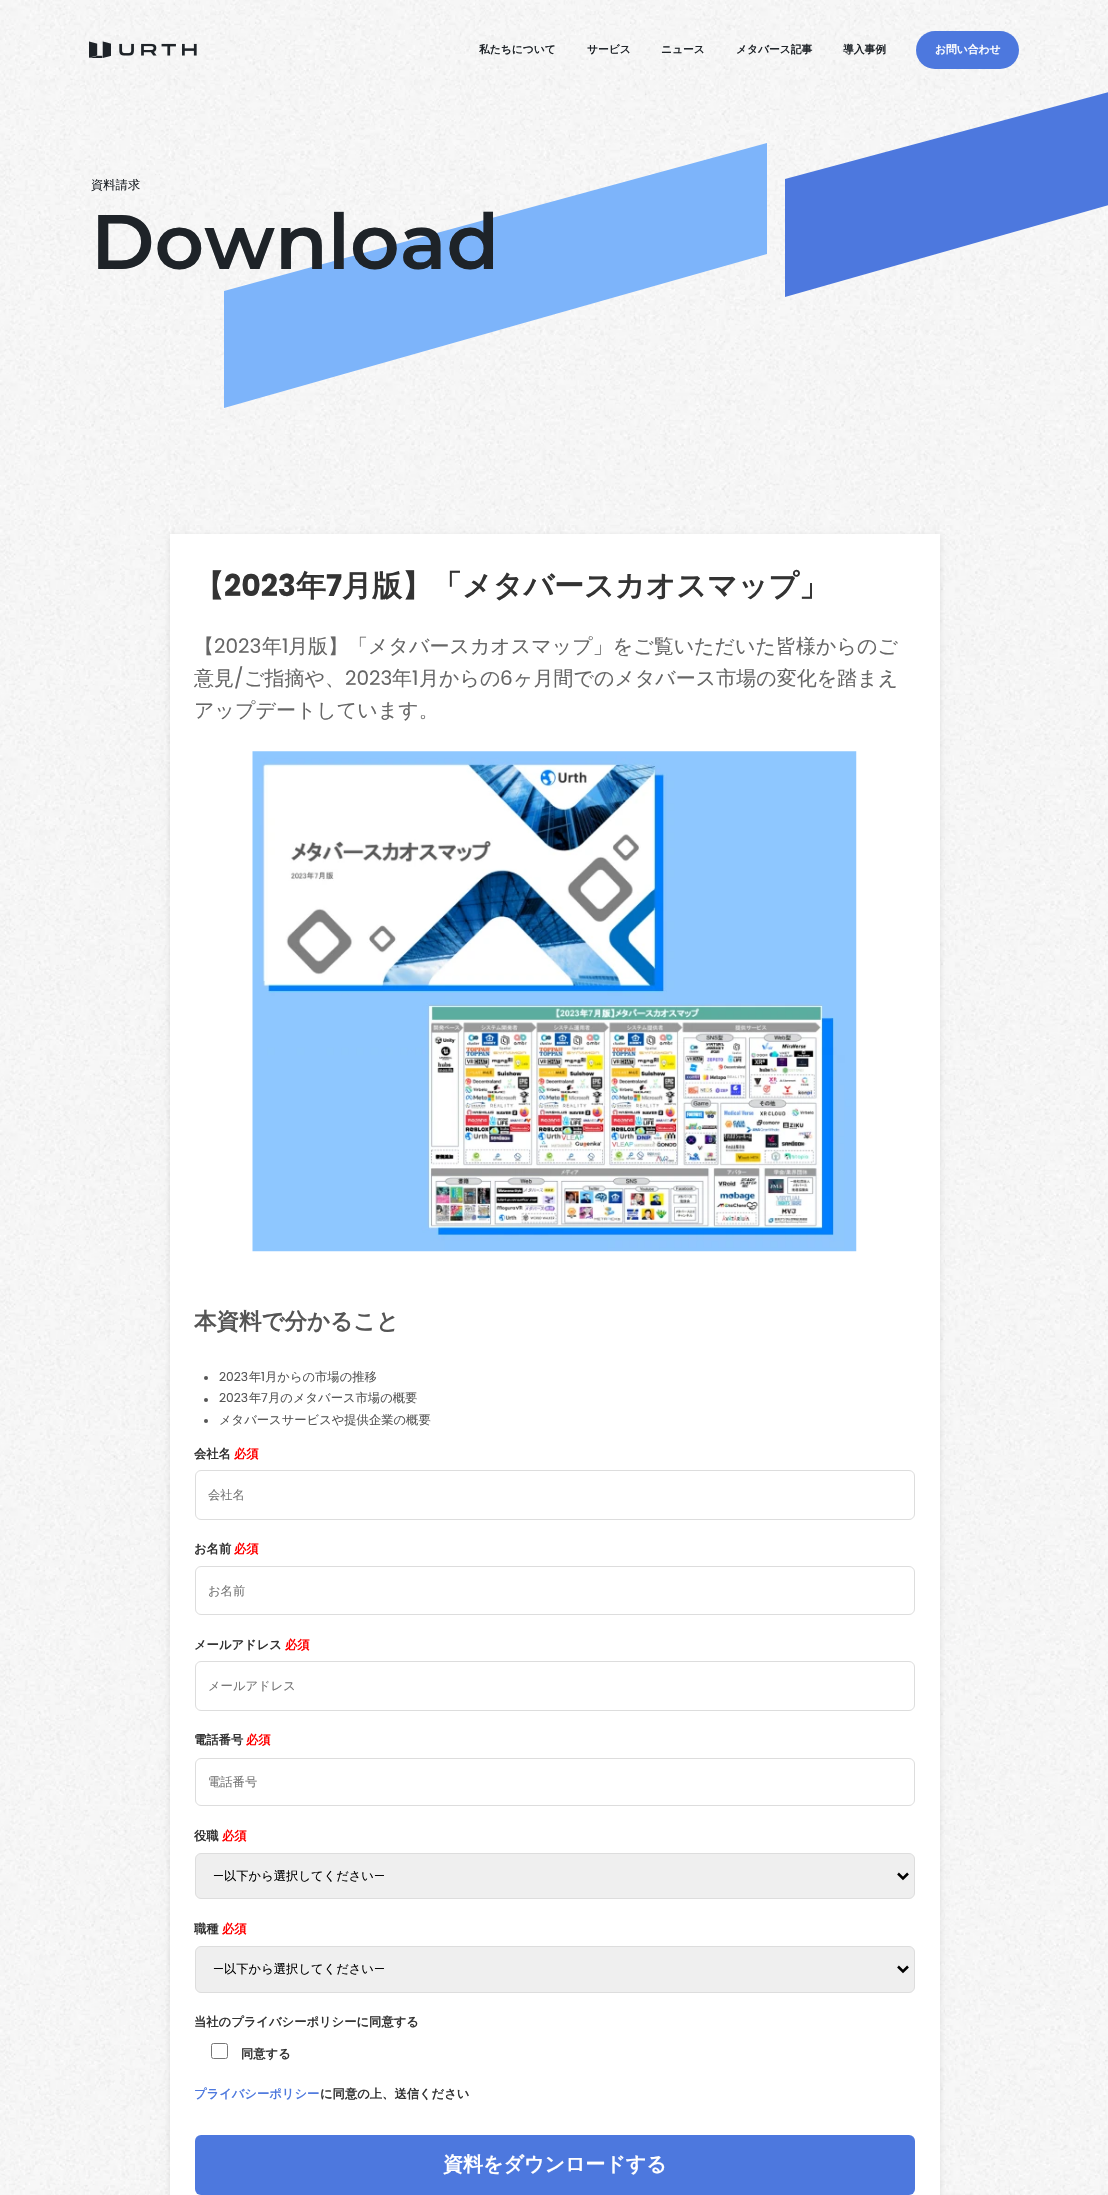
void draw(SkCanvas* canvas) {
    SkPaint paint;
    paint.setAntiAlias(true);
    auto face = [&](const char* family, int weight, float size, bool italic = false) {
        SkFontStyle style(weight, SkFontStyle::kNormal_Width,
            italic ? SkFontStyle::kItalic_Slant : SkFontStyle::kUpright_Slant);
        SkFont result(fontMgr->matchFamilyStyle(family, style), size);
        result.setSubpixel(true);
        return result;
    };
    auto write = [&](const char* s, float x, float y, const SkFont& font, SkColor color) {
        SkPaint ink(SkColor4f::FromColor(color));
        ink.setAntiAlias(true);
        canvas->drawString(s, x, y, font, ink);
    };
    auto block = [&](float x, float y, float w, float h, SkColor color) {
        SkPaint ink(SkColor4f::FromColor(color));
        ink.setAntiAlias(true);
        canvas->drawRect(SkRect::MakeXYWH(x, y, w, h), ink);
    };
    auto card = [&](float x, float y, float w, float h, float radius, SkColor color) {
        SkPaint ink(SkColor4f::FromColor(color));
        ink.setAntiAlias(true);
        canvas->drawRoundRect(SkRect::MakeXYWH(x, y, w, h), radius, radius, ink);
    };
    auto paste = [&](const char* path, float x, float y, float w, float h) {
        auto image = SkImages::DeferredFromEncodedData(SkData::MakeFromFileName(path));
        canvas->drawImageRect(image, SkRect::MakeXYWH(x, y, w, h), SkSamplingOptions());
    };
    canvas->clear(SK_ColorWHITE);
    paste("pic1.png", 0, 0, 1108, 2195);
    paste("pic2.png", 89, 41, 108, 17);
    auto kFont1 = face("WenQuanYi Zen Hei", 700, 10.75f);
    write("私たちについて", 479, 53, kFont1, SkColorSetRGB(30, 35, 40));
    write("サービス", 587, 53, kFont1, SkColorSetRGB(30, 35, 40));
    write("ニュース", 661, 53, kFont1, SkColorSetRGB(30, 35, 40));
    write("メタバース記事", 736, 53, kFont1, SkColorSetRGB(30, 35, 40));
    write("導入事例", 843, 53, kFont1, SkColorSetRGB(30, 35, 40));
    card(916, 31, 103, 38, 19, SkColorSetRGB(77, 120, 222));
    write("お問い合わせ", 935, 53, kFont1, SK_ColorWHITE);
    paint.setColor(SkColorSetRGB(125, 180, 250));
    canvas->drawPath(SkPathBuilder().moveTo(224, 291).lineTo(767, 143).lineTo(767, 254).lineTo(224, 408).close().detach(), paint);
    paint.setColor(SkColorSetRGB(77, 120, 222));
    canvas->drawPath(SkPathBuilder().moveTo(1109, 205).lineTo(785, 297).lineTo(785, 179).lineTo(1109, 92).detach(), paint);
    auto kFont2 = face("WenQuanYi Zen Hei", 500, 12.3f);
    write("資料請求", 91, 189, kFont2, SkColorSetRGB(30, 35, 40));
    auto kFont3 = face("Montserrat", 600, 77);
    write("Download", 91, 269, kFont3, SkColorSetRGB(30, 35, 40));
    paint.setColor(SkColorSetARGB(26, 0, 0, 0));
    paint.setMaskFilter(SkMaskFilter::MakeBlur(kNormal_SkBlurStyle, 3));
    canvas->drawRect(SkRect::MakeXYWH(170, 536, 770, 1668), paint);
    paint.setMaskFilter(nullptr);
    block(170, 534, 770, 1661, SK_ColorWHITE);
    auto kFont4 = face("WenQuanYi Zen Hei", 700, 30);
    write("【", 194, 596, kFont4, SkColorSetRGB(51, 51, 51));
    auto kFont5 = face("Poppins", 700, 30);
    write("2023", 224, 596, kFont5, SkColorSetRGB(51, 51, 51));
    write("年", 296, 596, kFont4, SkColorSetRGB(51, 51, 51));
    write("7", 326, 596, kFont5, SkColorSetRGB(51, 51, 51));
    write("月版】「メタバースカオスマップ」", 342, 596, kFont4, SkColorSetRGB(51, 51, 51));
    auto kFont6 = face("WenQuanYi Zen Hei", 500, 20);
    write("【", 194, 653, kFont6, SkColorSetRGB(102, 102, 102));
    auto kFont7 = face("Poppins", 400, 20);
    write("2023", 214, 653, kFont7, SkColorSetRGB(102, 102, 102));
    write("年", 262, 653, kFont6, SkColorSetRGB(102, 102, 102));
    write("1", 282, 653, kFont7, SkColorSetRGB(102, 102, 102));
    write("月版】「メタバースカオスマップ」をご覧いただいた皆様からのご", 288, 653, kFont6, SkColorSetRGB(102, 102, 102));
    write("意見", 194, 685, kFont6, SkColorSetRGB(102, 102, 102));
    write("/", 234, 685, kFont7, SkColorSetRGB(102, 102, 102));
    write("ご指摘や、", 244, 685, kFont6, SkColorSetRGB(102, 102, 102));
    write("2023", 345, 685, kFont7, SkColorSetRGB(102, 102, 102));
    write("年", 392, 685, kFont6, SkColorSetRGB(102, 102, 102));
    write("1", 412, 685, kFont7, SkColorSetRGB(102, 102, 102));
    write("月からの", 419, 685, kFont6, SkColorSetRGB(102, 102, 102));
    write("6", 500, 685, kFont7, SkColorSetRGB(102, 102, 102));
    write("ヶ月間でのメタバース市場の変化を踏まえ", 513, 685, kFont6, SkColorSetRGB(102, 102, 102));
    write("アップデートしています。", 194, 717, kFont6, SkColorSetRGB(102, 102, 102));
    paste("pic3.png", 252, 751, 605, 501);
    auto kFont8 = face("WenQuanYi Zen Hei", 700, 22.5f);
    write("本資料で分かること", 194, 1329, kFont8, SkColorSetRGB(85, 85, 85));
    auto kFont9 = face("Poppins", 400, 12.3f);
    write("2023", 219, 1381, kFont9, SkColorSetRGB(85, 85, 85));
    write("年 月からの市場の推移", 249, 1381, kFont2, SkColorSetRGB(85, 85, 85));
    paint.setColor(SkColorSetRGB(85, 85, 85));
    canvas->drawCircle(206, 1378, 2, paint);
    write("1", 261, 1381, kFont9, SkColorSetRGB(85, 85, 85));
    canvas->drawCircle(206, 1400, 2, paint);
    write("2023", 219, 1402, kFont9, SkColorSetRGB(85, 85, 85));
    write("年", 249, 1402, kFont2, SkColorSetRGB(85, 85, 85));
    write("7", 261, 1402, kFont9, SkColorSetRGB(85, 85, 85));
    write("月のメタバース市場の概要", 268, 1402, kFont2, SkColorSetRGB(85, 85, 85));
    canvas->drawCircle(206, 1421, 2, paint);
    write("メタバースサービスや提供企業の概要", 219, 1424, kFont2, SkColorSetRGB(85, 85, 85));
    auto kFont10 = face("WenQuanYi Zen Hei", 700, 12.3f);
    write("会社名", 194, 1458, kFont10, SkColorSetRGB(51, 51, 51));
    write("必須", 234, 1458, kFont10, SkColorSetRGB(255, 0, 0));
    paint.setStyle(SkPaint::kStroke_Style);
    paint.setStrokeWidth(1);
    paint.setColor(SkColorSetRGB(221, 221, 221));
    canvas->drawRoundRect(SkRect::MakeXYWH(195.5f, 1470.5f, 719, 49), 5.5f, 5.5f, paint);
    write("会社名", 208, 1499, kFont2, SkColorSetRGB(117, 117, 117));
    write("お名前", 194, 1553, kFont10, SkColorSetRGB(51, 51, 51));
    write("必須", 234, 1553, kFont10, SkColorSetRGB(255, 0, 0));
    canvas->drawRoundRect(SkRect::MakeXYWH(195.5f, 1566.5f, 719, 48), 5.5f, 5.5f, paint);
    write("お名前", 208, 1595, kFont2, SkColorSetRGB(117, 117, 117));
    write("メールアドレス", 194, 1649, kFont10, SkColorSetRGB(51, 51, 51));
    write("必須", 285, 1649, kFont10, SkColorSetRGB(255, 0, 0));
    canvas->drawRoundRect(SkRect::MakeXYWH(195.5f, 1661.5f, 719, 49), 5.5f, 5.5f, paint);
    write("メールアドレス", 208, 1690, kFont2, SkColorSetRGB(117, 117, 117));
    write("電話番号", 194, 1744, kFont10, SkColorSetRGB(51, 51, 51));
    write("必須", 246, 1744, kFont10, SkColorSetRGB(255, 0, 0));
    canvas->drawRoundRect(SkRect::MakeXYWH(195.5f, 1758.5f, 719, 47), 5.5f, 5.5f, paint);
    write("電話番号", 208, 1786, kFont2, SkColorSetRGB(117, 117, 117));
    write("役職", 194, 1840, kFont10, SkColorSetRGB(51, 51, 51));
    write("必須", 222, 1840, kFont10, SkColorSetRGB(255, 0, 0));
    paint.setStyle(SkPaint::kFill_Style);
    paint.setColor(SkColorSetRGB(239, 239, 239));
    canvas->drawRoundRect(SkRect::MakeXYWH(195.5f, 1853.5f, 719, 45), 5.5f, 5.5f, paint);
    paint.setStyle(SkPaint::kStroke_Style);
    paint.setColor(SkColorSetRGB(221, 221, 221));
    canvas->drawRoundRect(SkRect::MakeXYWH(195.5f, 1853.5f, 719, 45), 5.5f, 5.5f, paint);
    paint.setStrokeWidth(2.5f);
    paint.setColor(SK_ColorBLACK);
    canvas->drawPath(SkPathBuilder().moveTo(898, 1873.5f).lineTo(903, 1878.5f).lineTo(908, 1873.5f).detach(), paint);
    write("—", 213, 1880, kFont9, SK_ColorBLACK);
    write("以下から選択してください", 224, 1880, kFont2, SK_ColorBLACK);
    write("—", 374, 1880, kFont9, SK_ColorBLACK);
    write("職種", 194, 1933, kFont10, SkColorSetRGB(51, 51, 51));
    write("必須", 222, 1933, kFont10, SkColorSetRGB(255, 0, 0));
    paint.setStyle(SkPaint::kFill_Style);
    paint.setColor(SkColorSetRGB(239, 239, 239));
    canvas->drawRoundRect(SkRect::MakeXYWH(195.5f, 1946.5f, 719, 46), 5.5f, 5.5f, paint);
    paint.setStyle(SkPaint::kStroke_Style);
    paint.setStrokeWidth(1);
    paint.setColor(SkColorSetRGB(221, 221, 221));
    canvas->drawRoundRect(SkRect::MakeXYWH(195.5f, 1946.5f, 719, 46), 5.5f, 5.5f, paint);
    paint.setStrokeWidth(2.5f);
    paint.setColor(SK_ColorBLACK);
    canvas->drawPath(SkPathBuilder().moveTo(898, 1966.5f).lineTo(903, 1971.5f).lineTo(908, 1966.5f).detach(), paint);
    write("—", 213, 1973, kFont9, SK_ColorBLACK);
    write("以下から選択してください", 224, 1973, kFont2, SK_ColorBLACK);
    write("—", 374, 1973, kFont9, SK_ColorBLACK);
    write("当社のプライバシーポリシーに同意する", 194, 2026, kFont10, SkColorSetRGB(51, 51, 51));
    paint.setStrokeWidth(1);
    paint.setColor(SkColorSetRGB(118, 118, 118));
    canvas->drawRoundRect(SkRect::MakeXYWH(211.5f, 2043.5f, 16, 15), 2, 2, paint);
    write("同意する", 241, 2058, kFont10, SkColorSetRGB(51, 51, 51));
    write("プライバシーポリシー", 194, 2098, kFont10, SkColorSetRGB(77, 120, 222));
    write("に同意の上、送信ください", 320, 2098, kFont10, SkColorSetRGB(51, 51, 51));
    card(195, 2135, 720, 60, 6, SkColorSetRGB(77, 120, 222));
    auto kFont11 = face("WenQuanYi Zen Hei", 700, 20);
    write("資料をダウンロードする", 443, 2171, kFont11, SK_ColorWHITE);
}
